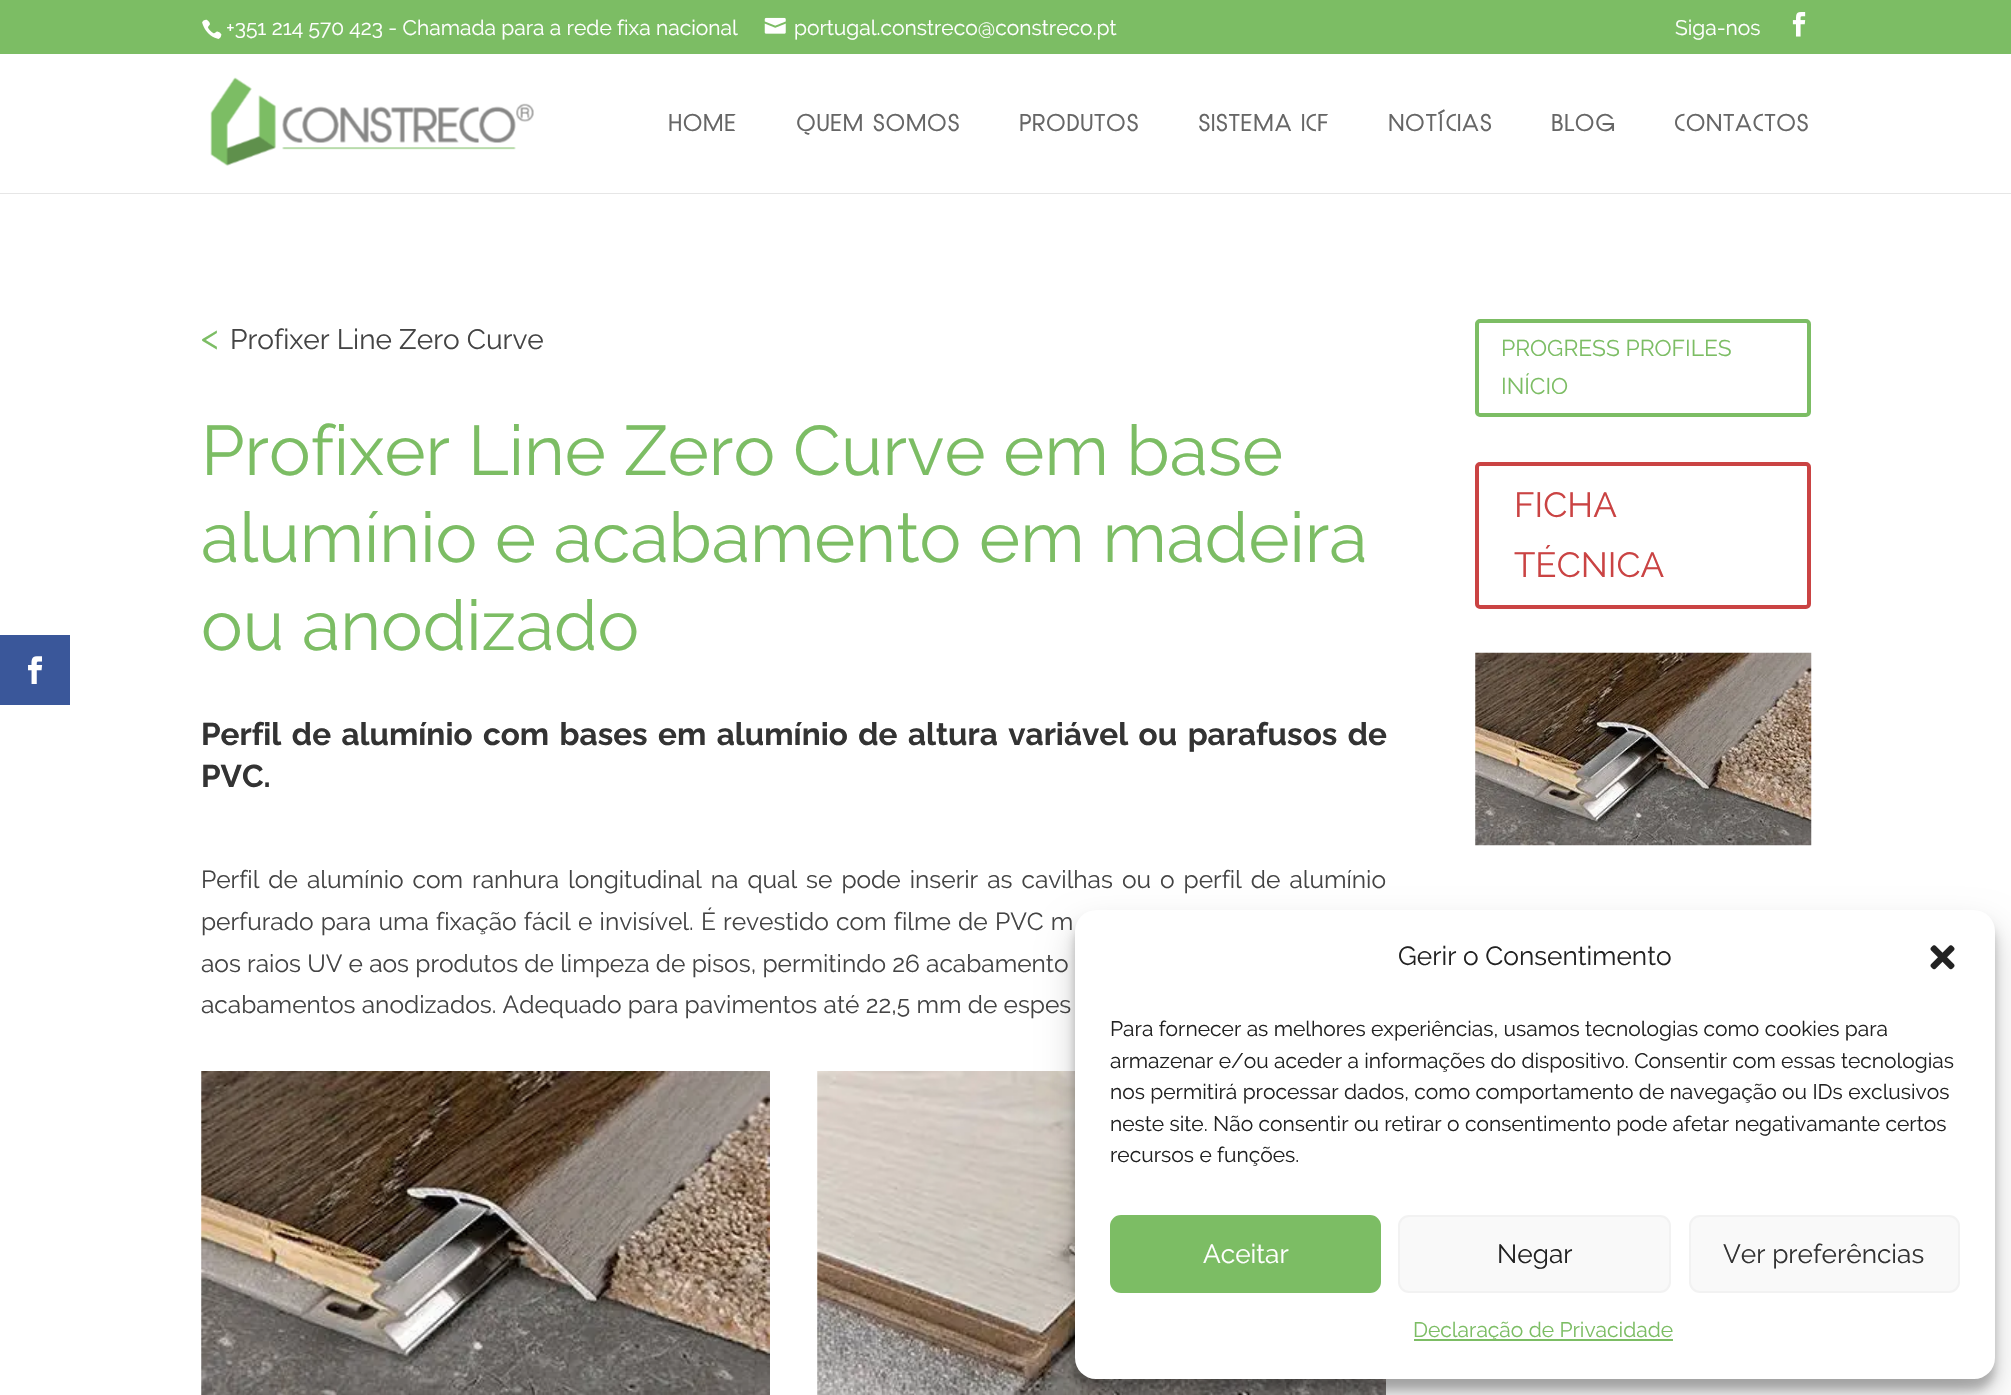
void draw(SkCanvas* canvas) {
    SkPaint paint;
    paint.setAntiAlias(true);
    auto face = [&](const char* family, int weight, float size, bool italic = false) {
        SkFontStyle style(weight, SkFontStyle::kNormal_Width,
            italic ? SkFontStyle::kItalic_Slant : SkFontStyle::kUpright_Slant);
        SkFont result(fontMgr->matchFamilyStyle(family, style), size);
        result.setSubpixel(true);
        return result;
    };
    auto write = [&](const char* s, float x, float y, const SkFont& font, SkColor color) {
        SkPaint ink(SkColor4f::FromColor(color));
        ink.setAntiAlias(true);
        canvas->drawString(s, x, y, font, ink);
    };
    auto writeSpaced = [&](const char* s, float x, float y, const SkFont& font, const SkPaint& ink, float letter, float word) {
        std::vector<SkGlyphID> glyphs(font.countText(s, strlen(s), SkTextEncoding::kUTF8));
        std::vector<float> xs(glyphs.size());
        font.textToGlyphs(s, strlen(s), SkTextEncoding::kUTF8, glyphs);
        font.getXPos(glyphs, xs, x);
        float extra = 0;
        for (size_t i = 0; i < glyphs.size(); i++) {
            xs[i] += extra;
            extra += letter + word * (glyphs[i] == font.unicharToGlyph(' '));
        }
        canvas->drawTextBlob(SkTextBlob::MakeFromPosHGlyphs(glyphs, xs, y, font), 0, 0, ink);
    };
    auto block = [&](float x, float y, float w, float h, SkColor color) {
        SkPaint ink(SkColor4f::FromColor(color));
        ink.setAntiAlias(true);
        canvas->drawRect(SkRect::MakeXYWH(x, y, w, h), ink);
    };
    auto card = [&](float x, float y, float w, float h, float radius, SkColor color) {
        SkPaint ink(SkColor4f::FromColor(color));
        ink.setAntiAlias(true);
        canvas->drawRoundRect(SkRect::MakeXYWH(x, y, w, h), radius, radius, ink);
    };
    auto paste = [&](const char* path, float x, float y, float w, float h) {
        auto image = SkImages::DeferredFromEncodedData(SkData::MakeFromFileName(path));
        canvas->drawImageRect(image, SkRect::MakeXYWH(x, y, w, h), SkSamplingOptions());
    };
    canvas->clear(SK_ColorWHITE);
    block(0, 635, 70, 70, SkColorSetRGB(58, 87, 154));
    paste("pic1.png", 28, 656, 15, 28);
    block(0, 0, 2011, 54, SkColorSetRGB(124, 189, 100));
    paste("pic2.png", 202, 19, 20, 20);
    auto kFont1 = face("Raleway", 400, 21);
    write("+351 214 570 423 - Chamada para a rede fixa nacional", 226, 35, kFont1, SK_ColorWHITE);
    paste("pic3.png", 764, 17, 22, 17);
    write("portugal.constreco@constreco.pt", 794, 35, kFont1, SK_ColorWHITE);
    write("Siga-nos", 1675, 35, kFont1, SK_ColorWHITE);
    paste("pic4.png", 1792, 12, 14, 25);
    paint.setColor(SkColorSetRGB(230, 230, 230));
    canvas->drawPath(SkPathBuilder().moveTo(0, 192).lineTo(0, 194).lineTo(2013, 194).lineTo(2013, 56).lineTo(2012, 56).lineTo(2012, 192).close().detach(), paint);
    block(0, 192, 2011, 1, SK_ColorWHITE);
    paste("pic5.png", 210, 77, 324, 89);
    auto kFont2 = face("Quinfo", 700, 22.75f);
    paint.setColor(SkColorSetRGB(102, 102, 102));
    writeSpaced("HOME", 669, 131, kFont2, paint, 1.75f, 0);
    writeSpaced("QUEM SOMOS", 797, 131, kFont2, paint, 1.75f, 0);
    writeSpaced("PRODUTOS", 1020, 131, kFont2, paint, 1.75f, 0);
    writeSpaced("SISTEMA ICF", 1199, 131, kFont2, paint, 1.75f, 0);
    writeSpaced("NOTÍCIAS", 1389, 131, kFont2, paint, 1.75f, 0);
    writeSpaced("BLOG", 1552, 131, kFont2, paint, 1.75f, 0);
    writeSpaced("CONTACTOS", 1675, 131, kFont2, paint, 1.75f, 0);
    auto kFont3 = face("Raleway", 400, 35);
    write("<", 201, 349, kFont3, SkColorSetRGB(124, 189, 100));
    auto kFont4 = face("Raleway", 400, 28);
    write("Profixer Line Zero Curve", 230, 349, kFont4, SkColorSetRGB(68, 68, 68));
    auto kFont5 = face("Raleway", 400, 70);
    write("Profixer Line Zero Curve em base", 201, 475, kFont5, SkColorSetRGB(124, 189, 100));
    write("alumínio e acabamento em madeira", 201, 562, kFont5, SkColorSetRGB(124, 189, 100));
    write("ou anodizado", 201, 650, kFont5, SkColorSetRGB(124, 189, 100));
    auto kFont6 = face("Raleway", 700, 31.5f);
    paint.setColor(SkColorSetRGB(51, 51, 51));
    writeSpaced("Perfil de alumínio com bases em alumínio de altura variável ou parafusos de", 201, 745, kFont6, paint, 0, 2.9f);
    write("PVC.", 201, 787, kFont6, SkColorSetRGB(51, 51, 51));
    auto kFont7 = face("Raleway", 400, 24.5f);
    paint.setColor(SkColorSetRGB(68, 68, 68));
    writeSpaced("Perfil de alumínio com ranhura longitudinal na qual se pode inserir as cavilhas ou o perfil de alumínio", 201, 888, kFont7, paint, 0, 2.75f);
    writeSpaced("perfurado para uma fixação fácil e invisível. É revestido com filme de PVC m", 201, 930, kFont7, paint, 0, 1);
    write("aos raios UV e aos produtos de limpeza de pisos, permitindo 26 acabamento", 201, 972, kFont7, SkColorSetRGB(68, 68, 68));
    write("acabamentos anodizados. Adequado para pavimentos até 22,5 mm de espes", 201, 1013, kFont7, SkColorSetRGB(68, 68, 68));
    paste("pic6.png", 201, 1071, 569, 324);
    paste("pic7.png", 817, 1071, 569, 324);
    paint.setStyle(SkPaint::kStroke_Style);
    paint.setStrokeWidth(4);
    paint.setColor(SkColorSetRGB(124, 189, 100));
    canvas->drawRoundRect(SkRect::MakeXYWH(1477, 321, 332, 94), 3, 3, paint);
    auto kFont8 = face("Raleway", 400, 22.75f);
    write("PROGRESS PROFILES", 1501, 356, kFont8, SkColorSetRGB(124, 189, 100));
    write("INÍCIO", 1501, 394, kFont8, SkColorSetRGB(124, 189, 100));
    paint.setColor(SkColorSetRGB(202, 67, 67));
    canvas->drawRoundRect(SkRect::MakeXYWH(1477, 464, 332, 143), 3, 3, paint);
    write("FICHA", 1514, 517, kFont3, SkColorSetRGB(202, 67, 67));
    write("TÉCNICA", 1514, 577, kFont3, SkColorSetRGB(202, 67, 67));
    paste("pic8.png", 1475, 652, 337, 194);
    paint.setStyle(SkPaint::kFill_Style);
    paint.setColor(SkColorSetARGB(59, 0, 0, 0));
    paint.setMaskFilter(SkMaskFilter::MakeBlur(kNormal_SkBlurStyle, 5));
    canvas->drawRoundRect(SkRect::MakeXYWH(1075, 921, 920, 469), 21, 21, paint);
    paint.setMaskFilter(nullptr);
    paint.setColor(SkColorSetARGB(48, 0, 0, 0));
    paint.setMaskFilter(SkMaskFilter::MakeBlur(kNormal_SkBlurStyle, 17.5f));
    canvas->drawRoundRect(SkRect::MakeXYWH(1075, 928, 920, 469), 21, 21, paint);
    paint.setMaskFilter(nullptr);
    card(1075, 910, 920, 469, 21, SK_ColorWHITE);
    auto kFont9 = face("Raleway", 400, 26.25f);
    write("Gerir o Consentimento", 1398, 965, kFont9, SkColorSetRGB(34, 34, 34));
    paste("pic9.png", 1930, 945, 25, 25);
    write("Para fornecer as melhores experiências, usamos tecnologias como cookies para", 1110, 1036, kFont1, SkColorSetRGB(34, 34, 34));
    write("armazenar e/ou aceder a informações do dispositivo. Consentir com essas tecnologias", 1110, 1068, kFont1, SkColorSetRGB(34, 34, 34));
    write("nos permitirá processar dados, como comportamento de navegação ou IDs exclusivos", 1110, 1099, kFont1, SkColorSetRGB(34, 34, 34));
    write("neste site. Não consentir ou retirar o consentimento pode afetar negativamante certos", 1110, 1131, kFont1, SkColorSetRGB(34, 34, 34));
    write("recursos e funções.", 1110, 1162, kFont1, SkColorSetRGB(34, 34, 34));
    paint.setColor(SkColorSetRGB(124, 189, 100));
    canvas->drawRoundRect(SkRect::MakeXYWH(1111, 1216, 269, 76), 10, 10, paint);
    paint.setStyle(SkPaint::kStroke_Style);
    paint.setStrokeWidth(2);
    canvas->drawRoundRect(SkRect::MakeXYWH(1111, 1216, 269, 76), 10, 10, paint);
    write("Aceitar", 1203, 1263, kFont9, SK_ColorWHITE);
    paint.setStyle(SkPaint::kFill_Style);
    paint.setColor(SkColorSetRGB(249, 249, 249));
    canvas->drawRoundRect(SkRect::MakeXYWH(1399, 1216, 271, 76), 10, 10, paint);
    paint.setStyle(SkPaint::kStroke_Style);
    paint.setColor(SkColorSetRGB(242, 242, 242));
    canvas->drawRoundRect(SkRect::MakeXYWH(1399, 1216, 271, 76), 10, 10, paint);
    write("Negar", 1497, 1263, kFont9, SkColorSetRGB(34, 34, 34));
    paint.setStyle(SkPaint::kFill_Style);
    paint.setColor(SkColorSetRGB(249, 249, 249));
    canvas->drawRoundRect(SkRect::MakeXYWH(1690, 1216, 269, 76), 10, 10, paint);
    paint.setStyle(SkPaint::kStroke_Style);
    paint.setColor(SkColorSetRGB(242, 242, 242));
    canvas->drawRoundRect(SkRect::MakeXYWH(1690, 1216, 269, 76), 10, 10, paint);
    write("Ver preferências", 1723, 1263, kFont9, SkColorSetRGB(51, 51, 51));
    block(1414, 1339, 259, 2, SkColorSetRGB(124, 189, 100));
    write("Declaração de Privacidade", 1413, 1337, kFont1, SkColorSetRGB(124, 189, 100));
}
